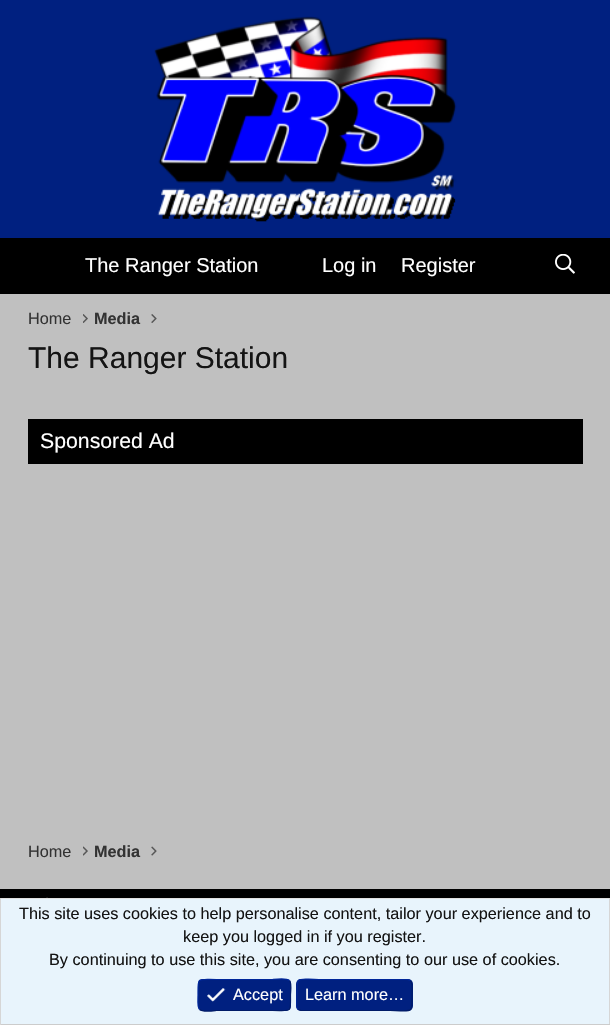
void draw(SkCanvas* canvas) {
    SkPaint paint;
    paint.setAntiAlias(true);
    auto face = [&](const char* family, int weight, float size, bool italic = false) {
        SkFontStyle style(weight, SkFontStyle::kNormal_Width,
            italic ? SkFontStyle::kItalic_Slant : SkFontStyle::kUpright_Slant);
        SkFont result(fontMgr->matchFamilyStyle(family, style), size);
        result.setSubpixel(true);
        return result;
    };
    auto write = [&](const char* s, float x, float y, const SkFont& font, SkColor color) {
        SkPaint ink(SkColor4f::FromColor(color));
        ink.setAntiAlias(true);
        canvas->drawString(s, x, y, font, ink);
    };
    auto block = [&](float x, float y, float w, float h, SkColor color) {
        SkPaint ink(SkColor4f::FromColor(color));
        ink.setAntiAlias(true);
        canvas->drawRect(SkRect::MakeXYWH(x, y, w, h), ink);
    };
    auto card = [&](float x, float y, float w, float h, float radius, SkColor color) {
        SkPaint ink(SkColor4f::FromColor(color));
        ink.setAntiAlias(true);
        canvas->drawRoundRect(SkRect::MakeXYWH(x, y, w, h), radius, radius, ink);
    };
    auto paste = [&](const char* path, float x, float y, float w, float h) {
        auto image = SkImages::DeferredFromEncodedData(SkData::MakeFromFileName(path));
        canvas->drawImageRect(image, SkRect::MakeXYWH(x, y, w, h), SkSamplingOptions());
    };
    canvas->clear(SkColorSetRGB(192, 192, 192));
    block(0, 0, 610, 238, SkColorSetRGB(0, 32, 128));
    paste("pic1.png", 154, 16, 303, 206);
    block(0, 238, 610, 56, SK_ColorBLACK);
    auto kFont1 = face("Liberation Sans", 400, 20);
    write("The Ranger Station", 85, 272, kFont1, SK_ColorWHITE);
    write("Log in", 322, 272, kFont1, SK_ColorWHITE);
    write("Register", 401, 272, kFont1, SK_ColorWHITE);
    paste("pic2.png", 555, 254, 20, 20);
    auto kFont2 = face("Liberation Sans", 400, 16.25f);
    write("Home", 28, 324, kFont2, SkColorSetRGB(51, 51, 51));
    paste("pic3.png", 83, 314, 5, 9);
    auto kFont3 = face("Liberation Sans", 700, 16.25f);
    write("Media", 94, 324, kFont3, SkColorSetRGB(51, 51, 51));
    paste("pic4.png", 151, 314, 6, 9);
    auto kFont4 = face("Liberation Sans", 400, 30);
    write("The Ranger Station", 28, 368, kFont4, SkColorSetRGB(20, 20, 20));
    block(28, 419, 555, 45, SK_ColorBLACK);
    auto kFont5 = face("Liberation Sans", 400, 21.25f);
    write("Sponsored Ad", 40, 448, kFont5, SK_ColorWHITE);
    write("Home", 28, 857, kFont2, SkColorSetRGB(51, 51, 51));
    paste("pic5.png", 83, 846, 5, 10);
    write("Media", 94, 857, kFont3, SkColorSetRGB(51, 51, 51));
    paste("pic6.png", 151, 846, 6, 10);
    block(0, 889, 610, 9, SK_ColorBLACK);
    paste("pic7.png", 46, 897, 2, 1);
    block(1, 899, 608, 125, SkColorSetRGB(232, 244, 252));
    block(0, 898, 610, 1, SkColorSetRGB(224, 224, 224));
    block(609, 898, 1, 127, SkColorSetRGB(214, 214, 214));
    block(0, 1024, 610, 1, SkColorSetRGB(204, 204, 204));
    block(0, 898, 1, 127, SkColorSetRGB(214, 214, 214));
    write("This site uses cookies to help personalise content, tailor your experience and to", 19, 919, kFont2, SkColorSetRGB(20, 20, 20));
    write("keep you logged in if you register.", 183, 942, kFont2, SkColorSetRGB(20, 20, 20));
    write("By continuing to use this site, you are consenting to our use of cookies.", 49, 965, kFont2, SkColorSetRGB(20, 20, 20));
    card(198, 979, 93, 32, 5, SkColorSetRGB(0, 32, 128));
    paint.setStyle(SkPaint::kStroke_Style);
    paint.setStrokeWidth(1.2f);
    paint.setColor(SkColorSetRGB(0, 26, 103));
    canvas->drawPath(SkPathBuilder().moveTo(289.5f, 980.5f).cubicTo(292, 983, 290.5f, 992, 290.5f, 995).cubicTo(290.5f, 1013.5f, 292.5f, 1010.5f, 272.5f, 1010.5f).lineTo(216.5f, 1010.5f).cubicTo(215.5f, 1010.5f, 203, 1012.5f, 199.5f, 1009.5f).detach(), paint);
    paint.setColor(SkColorSetRGB(0, 38, 154));
    canvas->drawPath(SkPathBuilder().moveTo(199.5f, 1009.5f).cubicTo(197, 1007, 198, 998, 198, 995).cubicTo(198, 976.5f, 196.5f, 979.5f, 216.5f, 979.5f).lineTo(272.5f, 979.5f).cubicTo(273, 979.5f, 286, 977.5f, 289.5f, 980.5f).detach(), paint);
    paste("pic8.png", 207, 988, 19, 14);
    write("Accept", 233, 1000, kFont2, SK_ColorWHITE);
    card(296, 979, 117, 32, 5, SkColorSetRGB(0, 32, 128));
    paint.setColor(SkColorSetRGB(0, 26, 103));
    canvas->drawPath(SkPathBuilder().moveTo(410.5f, 980.5f).cubicTo(413, 983, 412, 992, 412, 995).cubicTo(412, 1015, 413, 1010.5f, 390, 1010.5f).lineTo(301, 1010.5f).lineTo(298, 1009.5f).detach(), paint);
    paint.setColor(SkColorSetRGB(0, 38, 154));
    canvas->drawPath(SkPathBuilder().moveTo(298, 1009.5f).cubicTo(295.5f, 1007, 297, 998, 297, 995).cubicTo(297, 975, 296, 979.5f, 319, 979.5f).lineTo(407.5f, 979.5f).lineTo(410.5f, 980.5f).detach(), paint);
    write("Learn more…", 305, 1000, kFont2, SK_ColorWHITE);
}
